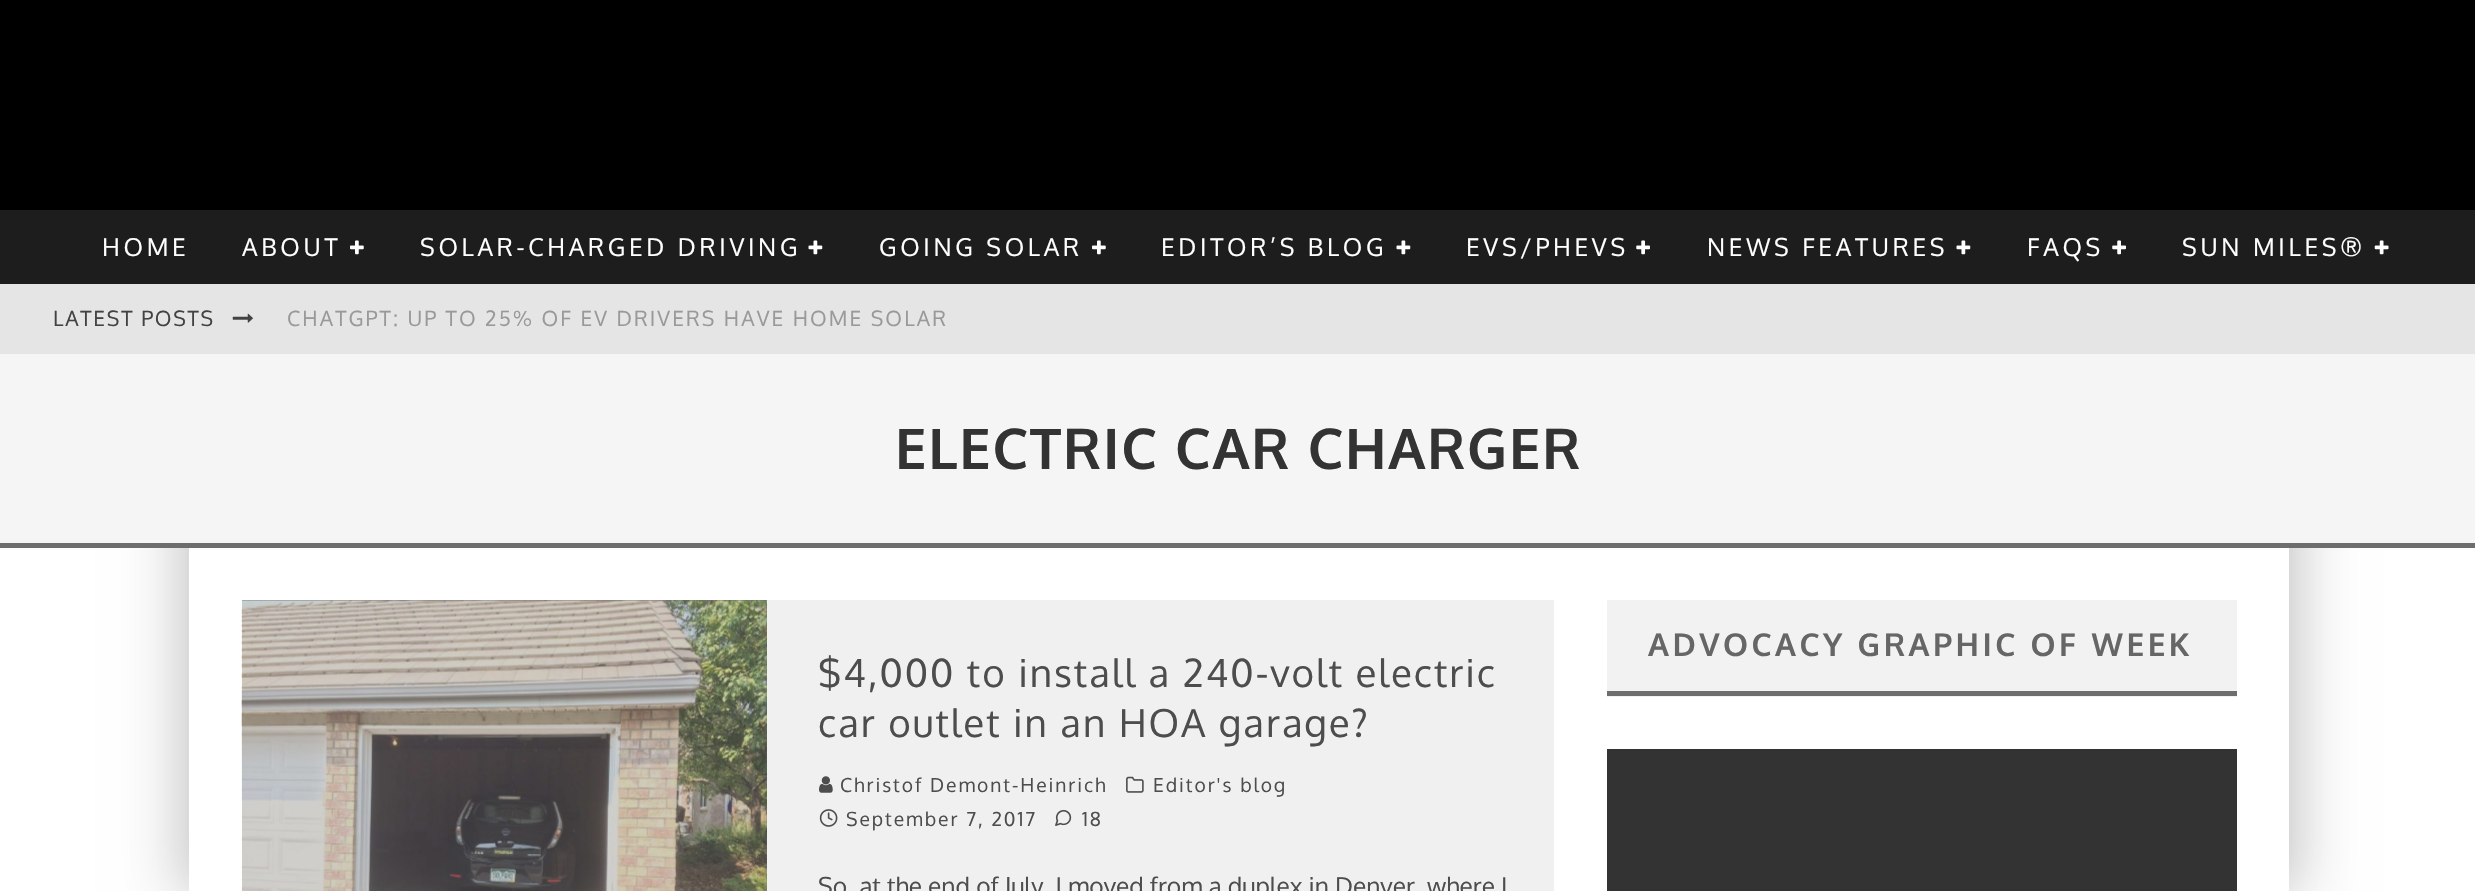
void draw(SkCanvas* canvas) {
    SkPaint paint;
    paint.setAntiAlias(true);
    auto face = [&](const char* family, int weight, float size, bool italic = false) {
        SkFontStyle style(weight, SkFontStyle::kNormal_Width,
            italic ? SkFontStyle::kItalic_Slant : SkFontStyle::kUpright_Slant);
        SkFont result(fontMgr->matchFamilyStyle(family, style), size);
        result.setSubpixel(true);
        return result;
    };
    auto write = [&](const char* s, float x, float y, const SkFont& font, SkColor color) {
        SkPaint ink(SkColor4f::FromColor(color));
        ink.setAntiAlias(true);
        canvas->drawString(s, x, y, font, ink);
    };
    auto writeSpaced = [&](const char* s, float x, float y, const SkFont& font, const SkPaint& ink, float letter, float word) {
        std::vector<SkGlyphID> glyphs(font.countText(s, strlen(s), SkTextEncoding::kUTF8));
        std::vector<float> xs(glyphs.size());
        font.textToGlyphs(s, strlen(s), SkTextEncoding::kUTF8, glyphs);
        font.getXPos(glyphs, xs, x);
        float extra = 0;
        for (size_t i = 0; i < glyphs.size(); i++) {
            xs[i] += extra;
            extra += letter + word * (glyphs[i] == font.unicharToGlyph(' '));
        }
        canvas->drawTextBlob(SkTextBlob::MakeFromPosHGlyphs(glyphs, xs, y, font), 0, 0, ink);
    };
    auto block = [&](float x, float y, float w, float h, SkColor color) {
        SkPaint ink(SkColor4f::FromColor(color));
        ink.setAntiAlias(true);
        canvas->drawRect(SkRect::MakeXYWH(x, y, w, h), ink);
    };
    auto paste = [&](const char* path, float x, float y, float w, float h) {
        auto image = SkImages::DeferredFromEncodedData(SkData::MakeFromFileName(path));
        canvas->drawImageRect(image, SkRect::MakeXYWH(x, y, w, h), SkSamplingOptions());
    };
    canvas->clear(SK_ColorWHITE);
    canvas->save();
    canvas->clipPath(SkPathBuilder(SkPathFillType::kEvenOdd).moveTo(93, 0).lineTo(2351, 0).lineTo(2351, 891).lineTo(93, 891).close().moveTo(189, 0).lineTo(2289, 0).lineTo(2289, 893).lineTo(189, 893).close().detach(), true);
    paint.setColor(SkColorSetARGB(38, 0, 0, 0));
    paint.setMaskFilter(SkMaskFilter::MakeBlur(kNormal_SkBlurStyle, 26));
    canvas->drawRect(SkRect::MakeXYWH(172, 0, 2100, 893), paint);
    paint.setMaskFilter(nullptr);
    canvas->restore();
    canvas->save();
    canvas->clipPath(SkPathBuilder(SkPathFillType::kEvenOdd).moveTo(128, 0).lineTo(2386, 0).lineTo(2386, 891).lineTo(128, 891).close().moveTo(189, 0).lineTo(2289, 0).lineTo(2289, 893).lineTo(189, 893).close().detach(), true);
    paint.setMaskFilter(SkMaskFilter::MakeBlur(kNormal_SkBlurStyle, 26));
    canvas->drawRect(SkRect::MakeXYWH(207, 0, 2100, 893), paint);
    paint.setMaskFilter(nullptr);
    canvas->restore();
    block(0, 0, 2475, 210, SK_ColorBLACK);
    block(0, 210, 2475, 74, SkColorSetRGB(29, 29, 29));
    auto kFont1 = face("Oxygen", 400, 24.5f);
    paint.setColor(SK_ColorWHITE);
    writeSpaced("HOME", 102, 256, kFont1, paint, 3.7f, 0);
    writeSpaced("ABOUT", 242, 256, kFont1, paint, 3.7f, 0);
    paste("pic1.png", 350, 240, 14, 15);
    writeSpaced("SOLAR-CHARGED DRIVING", 420, 256, kFont1, paint, 3.7f, 0);
    paste("pic2.png", 808, 240, 15, 15);
    writeSpaced("GOING SOLAR", 879, 256, kFont1, paint, 3.7f, 0);
    paste("pic1.png", 1092, 240, 14, 15);
    writeSpaced("EDITOR’S BLOG", 1161, 256, kFont1, paint, 3.7f, 0);
    paste("pic2.png", 1396, 240, 15, 15);
    writeSpaced("EVS/PHEVS", 1466, 256, kFont1, paint, 3.7f, 0);
    paste("pic3.png", 1636, 240, 14, 15);
    writeSpaced("NEWS FEATURES", 1707, 256, kFont1, paint, 3.7f, 0);
    paste("pic2.png", 1956, 240, 15, 15);
    writeSpaced("FAQS", 2027, 256, kFont1, paint, 3.7f, 0);
    paste("pic3.png", 2112, 240, 14, 15);
    writeSpaced("SUN MILES®", 2182, 256, kFont1, paint, 3.7f, 0);
    paste("pic4.png", 2374, 240, 15, 15);
    block(0, 284, 2475, 70, SkColorSetRGB(229, 229, 229));
    auto kFont2 = face("Oxygen", 400, 21);
    paint.setColor(SkColorSetRGB(66, 66, 66));
    writeSpaced("LATEST POSTS", 53, 326, kFont2, paint, 1.75f, 0);
    paste("pic5.png", 232, 313, 21, 10);
    paint.setColor(SkColorSetRGB(153, 153, 153));
    writeSpaced("CHATGPT: UP TO 25% OF EV DRIVERS HAVE HOME SOLAR", 287, 326, kFont2, paint, 2.1f, 0);
    block(0, 354, 2475, 189, SkColorSetRGB(245, 245, 245));
    block(0, 543, 2475, 5, SkColorSetRGB(109, 109, 109));
    auto kFont3 = face("Oxygen", 700, 56);
    paint.setColor(SkColorSetRGB(51, 51, 51));
    writeSpaced("ELECTRIC CAR CHARGER", 895, 469, kFont3, paint, 1.75f, 0);
    block(1607, 600, 630, 97, SkColorSetRGB(242, 242, 242));
    block(1607, 691, 630, 5, SkColorSetRGB(109, 109, 109));
    auto kFont4 = face("Oxygen", 700, 31.5f);
    paint.setColor(SkColorSetRGB(102, 102, 102));
    writeSpaced("ADVOCACY GRAPHIC OF WEEK", 1648, 656, kFont4, paint, 3.5f, 0);
    block(1607, 749, 630, 142, SkColorSetRGB(51, 51, 51));
    block(767, 600, 787, 291, SkColorSetRGB(240, 240, 240));
    block(242, 600, 525, 291, SkColorSetRGB(109, 109, 109));
    paste("pic6.png", 241, 600, 526, 291);
    auto kFont5 = face("Oxygen", 400, 38.5f);
    paint.setColor(SkColorSetRGB(77, 77, 77));
    writeSpaced("$4,000 to install a 240-volt electric", 818, 687, kFont5, paint, 1.95f, 0);
    writeSpaced("car outlet in an HOA garage?", 818, 737, kFont5, paint, 1.95f, 0);
    paste("pic7.png", 819, 776, 14, 17);
    auto kFont6 = face("Oxygen", 400, 19.25f);
    writeSpaced("Christof Demont-Heinrich", 840, 792, kFont6, paint, 1.95f, 0);
    paste("pic8.png", 1126, 776, 18, 17);
    writeSpaced("Editor's blog", 1153, 792, kFont6, paint, 1.95f, 0);
    paste("pic9.png", 819, 809, 19, 18);
    writeSpaced("September 7, 2017", 846, 826, kFont6, paint, 1.95f, 0);
    paste("pic10.png", 1055, 809, 17, 17);
    writeSpaced("18", 1082, 826, kFont6, paint, 1.95f, 0);
    write("So, at the end of July, I moved from a duplex in Denver, where I", 818, 895, kFont1, SkColorSetRGB(77, 77, 77));
}
